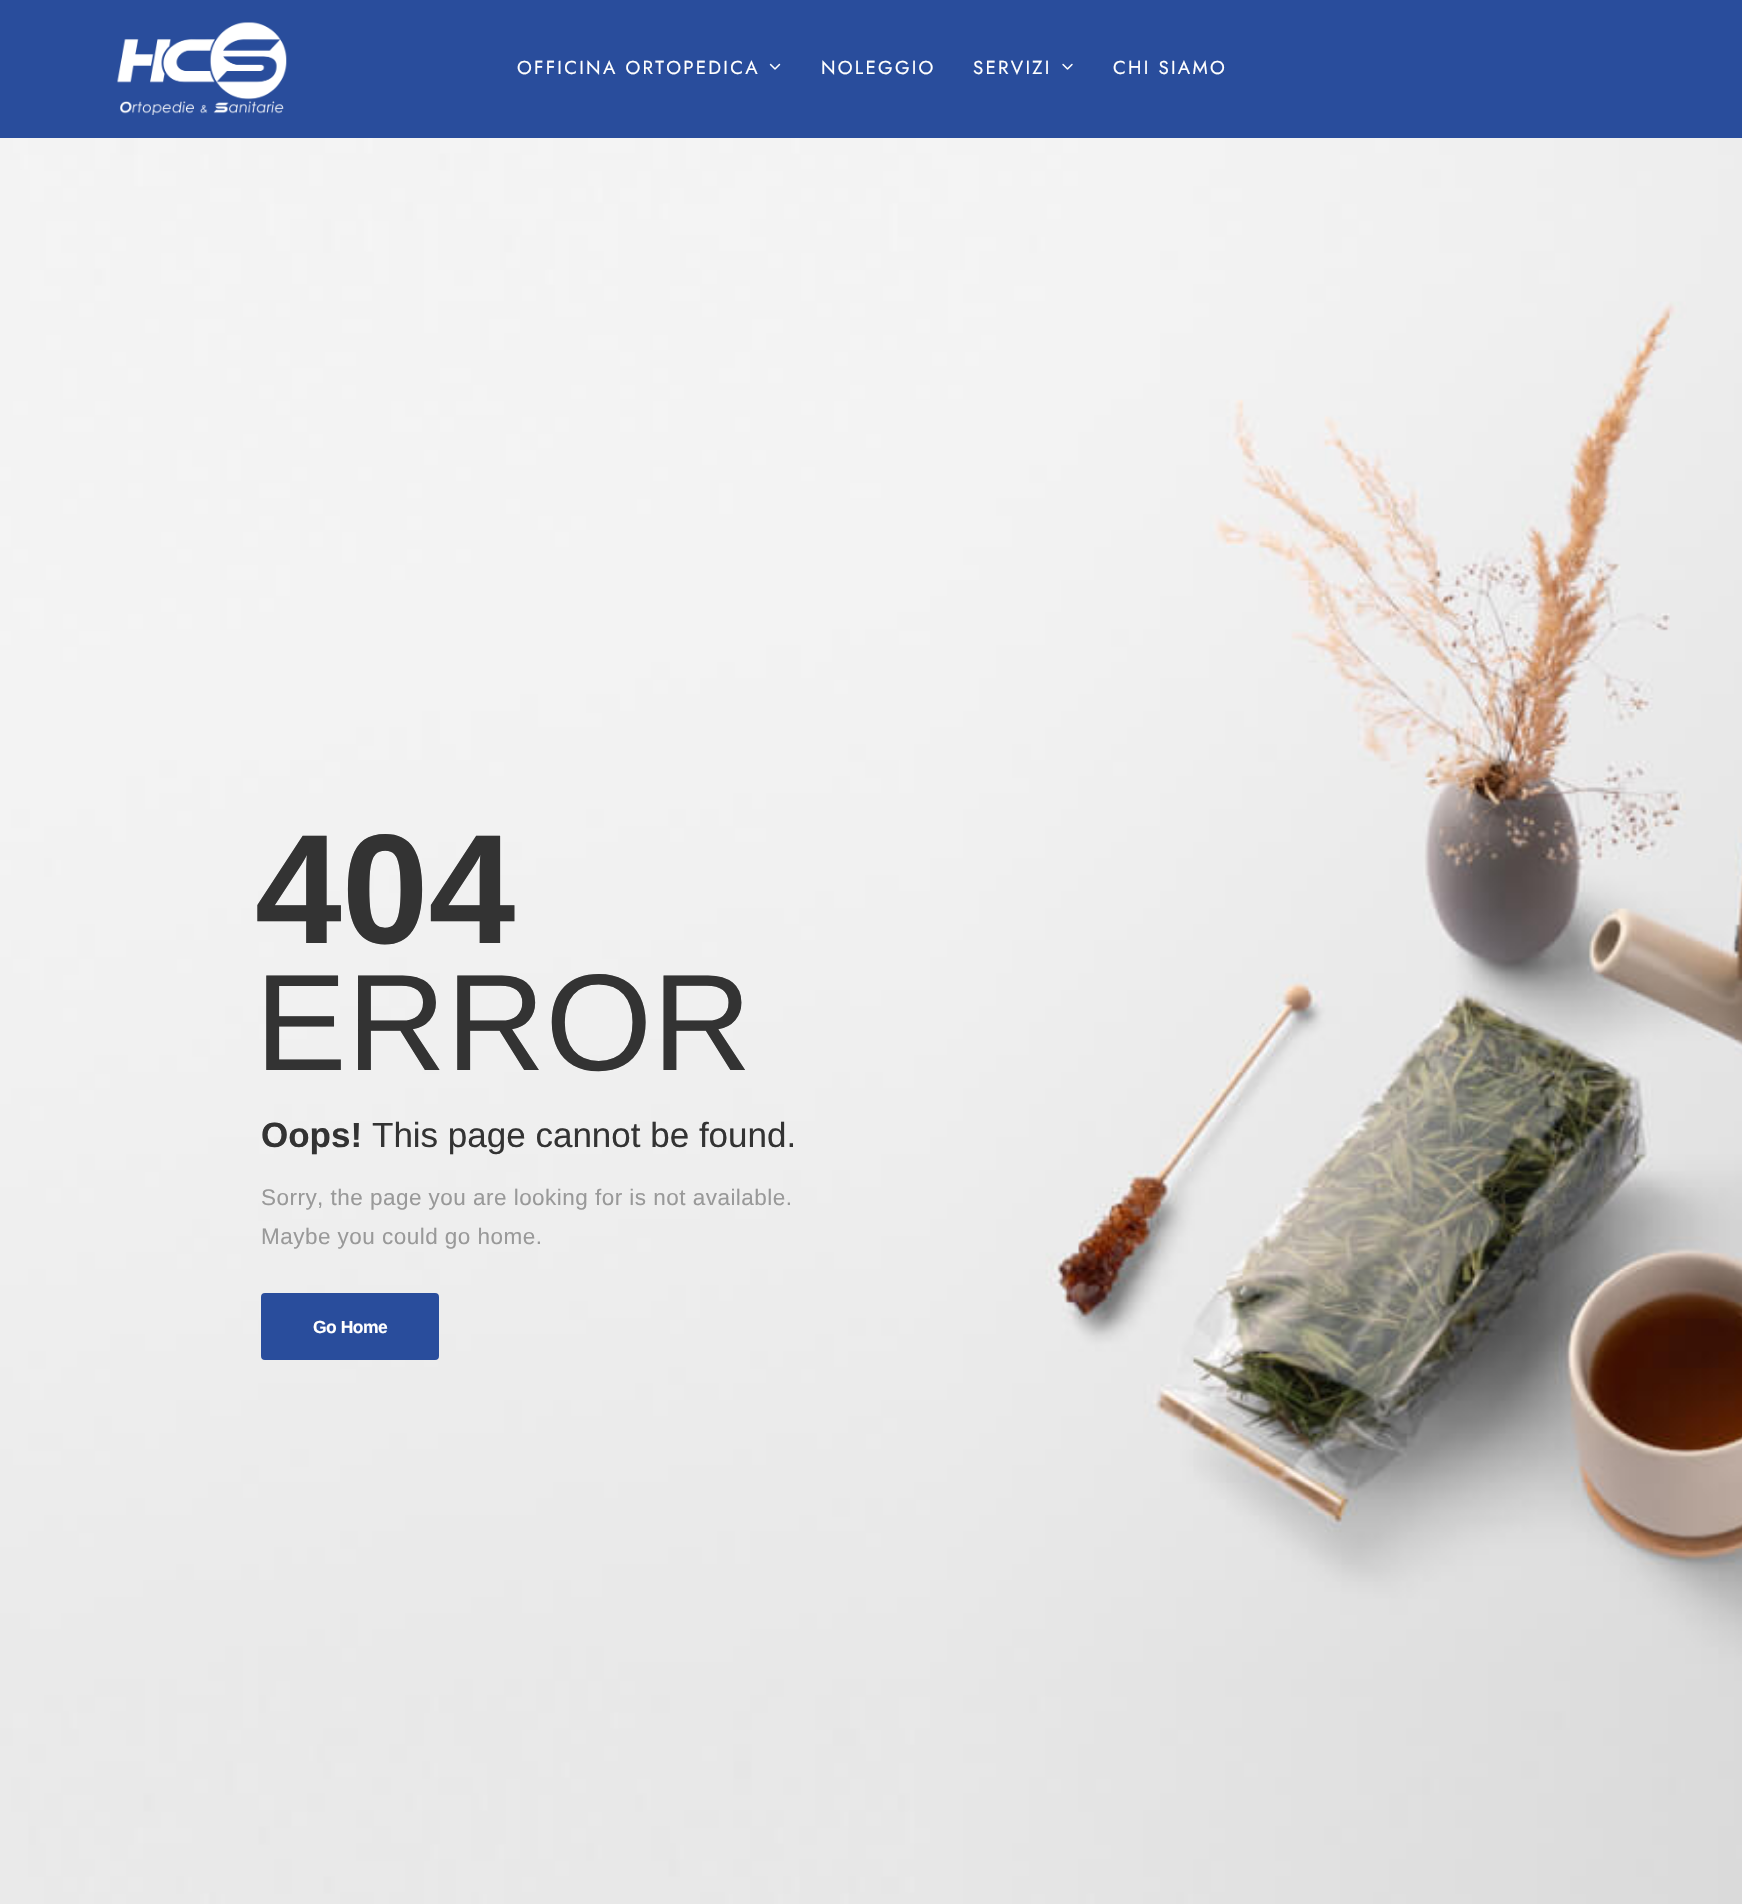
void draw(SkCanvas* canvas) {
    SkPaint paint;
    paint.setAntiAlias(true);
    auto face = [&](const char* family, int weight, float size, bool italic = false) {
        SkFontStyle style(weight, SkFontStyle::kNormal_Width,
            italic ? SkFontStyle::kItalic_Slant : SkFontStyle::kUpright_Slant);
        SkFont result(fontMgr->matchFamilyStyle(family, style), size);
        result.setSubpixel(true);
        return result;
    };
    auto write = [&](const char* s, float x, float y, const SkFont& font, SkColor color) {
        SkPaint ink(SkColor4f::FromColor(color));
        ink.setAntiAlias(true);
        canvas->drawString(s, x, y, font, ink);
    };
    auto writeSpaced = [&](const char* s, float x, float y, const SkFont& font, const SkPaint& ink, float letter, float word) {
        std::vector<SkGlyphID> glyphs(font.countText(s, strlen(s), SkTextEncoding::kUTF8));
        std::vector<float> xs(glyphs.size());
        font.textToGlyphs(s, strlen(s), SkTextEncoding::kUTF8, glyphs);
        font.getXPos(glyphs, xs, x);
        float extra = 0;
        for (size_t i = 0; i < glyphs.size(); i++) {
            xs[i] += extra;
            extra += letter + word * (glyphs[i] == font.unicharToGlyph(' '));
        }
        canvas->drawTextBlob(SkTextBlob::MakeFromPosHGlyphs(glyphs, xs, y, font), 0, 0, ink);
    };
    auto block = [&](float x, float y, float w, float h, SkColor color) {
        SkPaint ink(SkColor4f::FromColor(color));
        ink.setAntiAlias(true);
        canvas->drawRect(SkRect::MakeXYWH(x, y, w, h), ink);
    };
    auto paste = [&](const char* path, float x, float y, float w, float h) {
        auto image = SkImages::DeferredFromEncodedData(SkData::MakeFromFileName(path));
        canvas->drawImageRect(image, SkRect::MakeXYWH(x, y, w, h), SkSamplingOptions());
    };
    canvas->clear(SK_ColorWHITE);
    block(0, 0, 1742, 138, SkColorSetRGB(41, 77, 156));
    paste("pic1.png", 117, 22, 170, 93);
    auto kFont1 = face("Jost", 400, 18.75f);
    paint.setColor(SK_ColorWHITE);
    writeSpaced("OFFICINA ORTOPEDICA", 517, 74, kFont1, paint, 2.25f, 0);
    paste("pic2.png", 769, 63, 12, 7);
    writeSpaced("NOLEGGIO", 821, 74, kFont1, paint, 2.25f, 0);
    writeSpaced("SERVIZI", 973, 74, kFont1, paint, 2.25f, 0);
    paste("pic3.png", 1062, 63, 11, 7);
    writeSpaced("CHI SIAMO", 1113, 74, kFont1, paint, 2.25f, 0);
    paste("pic4.png", 0, 138, 1742, 1766);
    auto kFont2 = face("Liberation Sans", 700, 156);
    write("404", 255, 943, kFont2, SkColorSetRGB(51, 51, 51));
    auto kFont3 = face("Liberation Sans", 400, 137.5f);
    write("ERROR", 255, 1070, kFont3, SkColorSetRGB(51, 51, 51));
    auto kFont4 = face("Liberation Sans", 700, 35);
    write("Oops!", 261, 1147, kFont4, SkColorSetRGB(51, 51, 51));
    auto kFont5 = face("Liberation Sans", 400, 35);
    write("This page cannot be found.", 372, 1147, kFont5, SkColorSetRGB(51, 51, 51));
    auto kFont6 = face("Liberation Sans", 400, 22.5f);
    paint.setColor(SkColorSetRGB(153, 153, 153));
    writeSpaced("Sorry, the page you are looking for is not available.", 261, 1205, kFont6, paint, 0.47f, 0);
    writeSpaced("Maybe you could go home.", 261, 1244, kFont6, paint, 0.47f, 0);
    paint.setColor(SkColorSetRGB(41, 77, 156));
    canvas->drawRoundRect(SkRect::MakeXYWH(262.5f, 1294.5f, 175, 64), 2.5f, 2.5f, paint);
    paint.setStyle(SkPaint::kStroke_Style);
    paint.setStrokeWidth(3);
    canvas->drawRoundRect(SkRect::MakeXYWH(262.5f, 1294.5f, 175, 64), 2.5f, 2.5f, paint);
    auto kFont7 = face("Liberation Sans", 700, 17.5f);
    paint.setStyle(SkPaint::kFill_Style);
    paint.setColor(SK_ColorWHITE);
    writeSpaced("Go Home", 313, 1333, kFont7, paint, -0.5f, 0);
}
